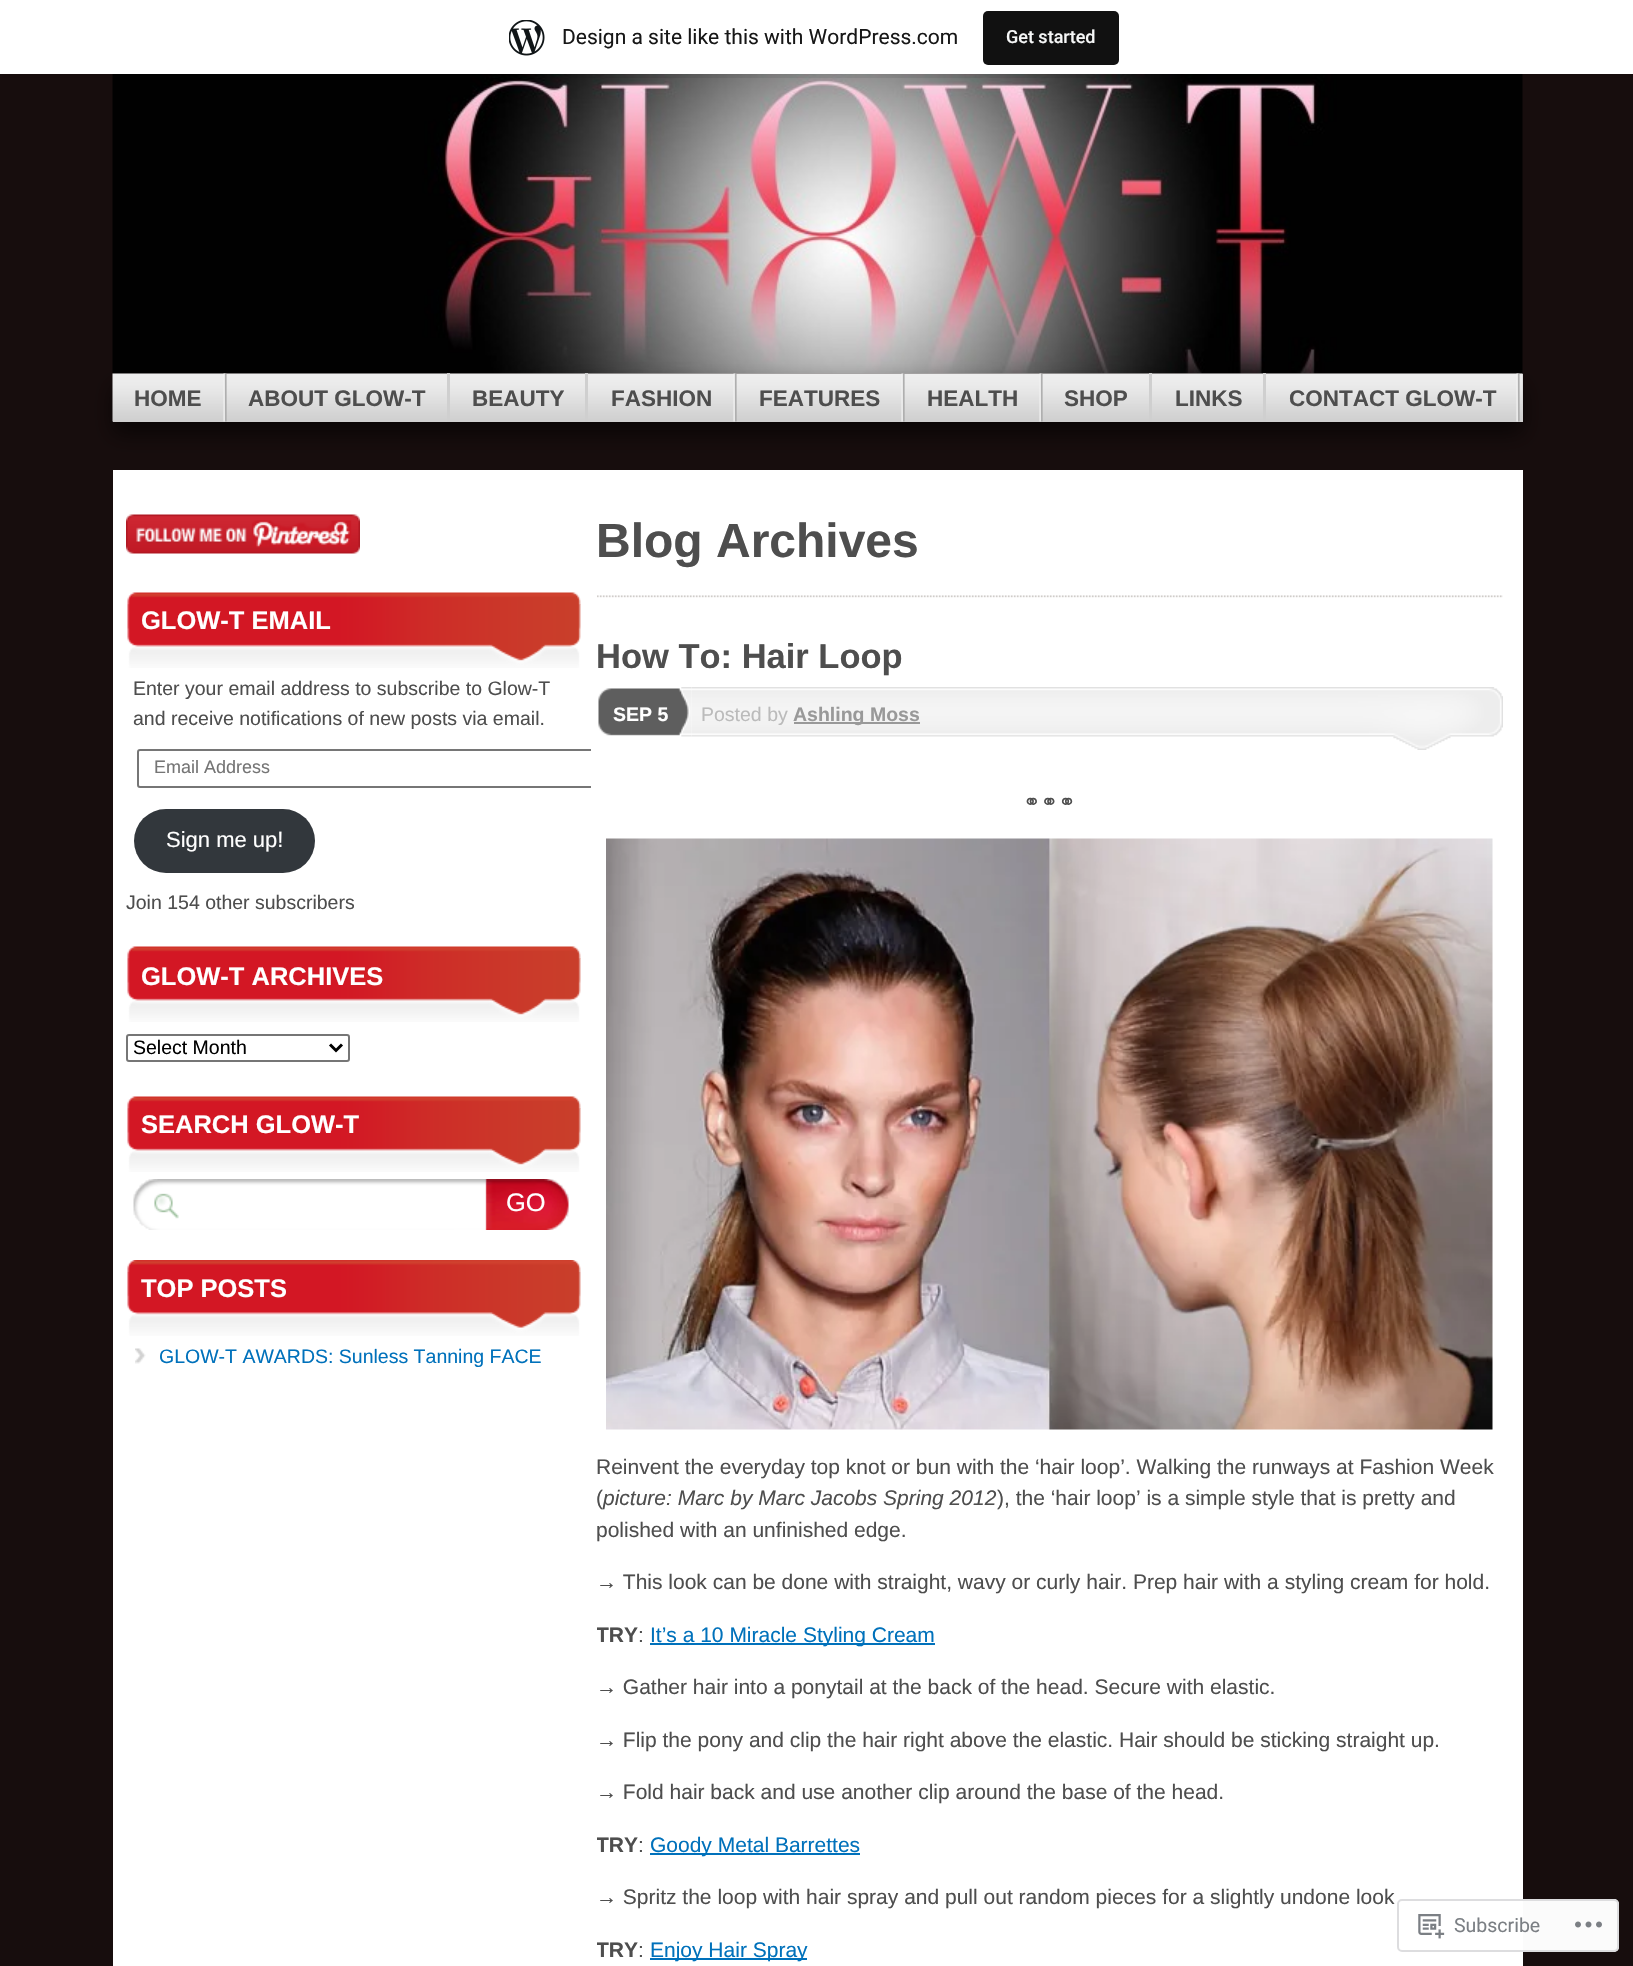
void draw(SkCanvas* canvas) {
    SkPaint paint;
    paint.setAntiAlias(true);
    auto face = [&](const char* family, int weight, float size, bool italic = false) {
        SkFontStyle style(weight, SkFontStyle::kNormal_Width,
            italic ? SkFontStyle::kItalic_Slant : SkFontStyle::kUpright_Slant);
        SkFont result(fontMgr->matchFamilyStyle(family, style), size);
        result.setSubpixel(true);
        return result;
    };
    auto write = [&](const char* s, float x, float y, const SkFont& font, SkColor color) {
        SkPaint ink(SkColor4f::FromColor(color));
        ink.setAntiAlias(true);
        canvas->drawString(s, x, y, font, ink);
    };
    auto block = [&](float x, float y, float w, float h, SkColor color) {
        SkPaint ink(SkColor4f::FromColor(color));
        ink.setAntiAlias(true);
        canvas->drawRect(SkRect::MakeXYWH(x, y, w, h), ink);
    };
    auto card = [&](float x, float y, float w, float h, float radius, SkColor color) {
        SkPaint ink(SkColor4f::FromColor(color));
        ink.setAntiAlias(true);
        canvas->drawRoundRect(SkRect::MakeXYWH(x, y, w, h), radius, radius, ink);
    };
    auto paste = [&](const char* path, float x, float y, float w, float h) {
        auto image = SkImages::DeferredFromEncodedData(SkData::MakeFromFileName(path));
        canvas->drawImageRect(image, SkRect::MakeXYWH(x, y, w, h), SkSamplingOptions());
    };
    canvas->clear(SkColorSetRGB(23, 13, 13));
    paste("pic2.png", 112, 74, 1411, 300);
    paint.setColor(SkColorSetARGB(20, 0, 0, 0));
    canvas->drawPath(SkPathBuilder().moveTo(2, 74).lineTo(2, 78).lineTo(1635, 78).lineTo(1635, 5).lineTo(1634, 5).lineTo(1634, 74).close().detach(), paint);
    block(0, 0, 1633, 74, SK_ColorWHITE);
    paste("pic1.png", 509, 20, 36, 36);
    auto kFont1 = face("Roboto", 400, 21);
    write("Design a site like this with WordPress.com", 562, 44, kFont1, SkColorSetRGB(23, 23, 23));
    card(983, 11, 136, 54, 5, SkColorSetRGB(17, 17, 17));
    auto kFont2 = face("Roboto", 500, 18);
    write("Get started", 1006, 43, kFont2, SkColorSetRGB(246, 247, 247));
    paint.setColor(SkColorSetARGB(153, 0, 0, 0));
    paint.setMaskFilter(SkMaskFilter::MakeBlur(kNormal_SkBlurStyle, 10.5f));
    canvas->drawRect(SkRect::MakeXYWH(113, 386, 1410, 48), paint);
    paint.setMaskFilter(nullptr);
    block(113, 374, 1410, 48, SkColorSetRGB(208, 208, 208));
    paste("pic3.png", 112, 373, 1411, 49);
    paste("pic4.png", 223, 373, 4, 49);
    auto kFont3 = face("Liberation Sans", 700, 22.5f);
    write("HOME", 134, 406, kFont3, SkColorSetRGB(78, 78, 78));
    block(447, 373, 3, 49, SkColorSetRGB(207, 207, 207));
    write("ABOUT GLOW-T", 248, 406, kFont3, SkColorSetRGB(78, 78, 78));
    block(585, 373, 3, 49, SkColorSetRGB(207, 207, 207));
    write("BEAUTY", 472, 406, kFont3, SkColorSetRGB(78, 78, 78));
    paste("pic5.png", 733, 373, 4, 49);
    write("FASHION", 611, 406, kFont3, SkColorSetRGB(78, 78, 78));
    paste("pic6.png", 901, 373, 4, 49);
    write("FEATURES", 759, 406, kFont3, SkColorSetRGB(78, 78, 78));
    paste("pic7.png", 1039, 373, 4, 49);
    write("HEALTH", 927, 406, kFont3, SkColorSetRGB(78, 78, 78));
    block(1149, 373, 3, 49, SkColorSetRGB(207, 207, 207));
    write("SHOP", 1064, 406, kFont3, SkColorSetRGB(78, 78, 78));
    block(1263, 373, 3, 49, SkColorSetRGB(207, 207, 207));
    write("LINKS", 1175, 406, kFont3, SkColorSetRGB(78, 78, 78));
    paste("pic4.png", 1516, 373, 4, 49);
    write("CONTACT GLOW-T", 1289, 406, kFont3, SkColorSetRGB(78, 78, 78));
    block(113, 470, 1410, 1496, SK_ColorWHITE);
    paste("pic8.png", 126, 514, 234, 40);
    paste("pic9.png", 127, 592, 454, 13);
    paste("pic10.png", 127, 604, 454, 64);
    auto kFont4 = face("Liberation Sans", 700, 25.5f);
    write("GLOW-T EMAIL", 141, 629, kFont4, SK_ColorWHITE);
    auto kFont5 = face("Liberation Sans", 400, 19.5f);
    write("Enter your email address to subscribe to Glow-T", 133, 695, kFont5, SkColorSetRGB(78, 78, 78));
    write("and receive notifications of new posts via email.", 133, 725, kFont5, SkColorSetRGB(78, 78, 78));
    canvas->save();
    canvas->clipRect(SkRect::MakeXYWH(126, 492, 465, 903));
    paint.setStyle(SkPaint::kStroke_Style);
    paint.setStrokeWidth(2);
    paint.setColor(SkColorSetRGB(118, 118, 118));
    canvas->drawRoundRect(SkRect::MakeXYWH(138, 750, 458, 37), 2, 2, paint);
    canvas->restore();
    auto kFont6 = face("Liberation Sans", 400, 18);
    write("Email Address", 154, 773, kFont6, SkColorSetRGB(117, 117, 117));
    card(134, 809, 181, 64, 32, SkColorSetRGB(50, 55, 60));
    auto kFont7 = face("Liberation Sans", 400, 22);
    write("Sign me up!", 166, 847, kFont7, SK_ColorWHITE);
    write("Join 154 other subscribers", 126, 909, kFont5, SkColorSetRGB(78, 78, 78));
    paste("pic9.png", 127, 946, 454, 13);
    paste("pic10.png", 127, 958, 454, 64);
    write("GLOW-T ARCHIVES", 141, 985, kFont4, SK_ColorWHITE);
    canvas->drawRoundRect(SkRect::MakeXYWH(127, 1035, 222, 26), 2, 2, paint);
    paint.setStrokeWidth(3);
    paint.setColor(SK_ColorBLACK);
    canvas->drawPath(SkPathBuilder().moveTo(330, 1044.5f).lineTo(336, 1050.5f).lineTo(342, 1044.5f).detach(), paint);
    write("Select Month", 133, 1054, kFont5, SK_ColorBLACK);
    paste("pic9.png", 127, 1096, 454, 13);
    paste("pic10.png", 127, 1108, 454, 64);
    write("SEARCH GLOW-T", 141, 1133, kFont4, SK_ColorWHITE);
    paste("pic11.png", 133, 1179, 353, 51);
    paste("pic12.png", 485, 1179, 84, 51);
    auto kFont8 = face("Liberation Sans", 400, 25.5f);
    write("GO", 506, 1211, kFont8, SK_ColorWHITE);
    paste("pic13.png", 127, 1260, 454, 12);
    paste("pic14.png", 127, 1272, 454, 64);
    write("TOP POSTS", 141, 1297, kFont4, SK_ColorWHITE);
    paste("pic15.png", 135, 1348, 11, 16);
    write("GLOW-T AWARDS: Sunless Tanning FACE", 159, 1363, kFont5, SkColorSetRGB(0, 113, 187));
    paste("pic16.png", 597, 595, 906, 3);
    auto kFont9 = face("Liberation Sans", 700, 48);
    write("Blog Archives", 596, 557, kFont9, SkColorSetRGB(78, 78, 78));
    auto kFont10 = face("Liberation Sans", 700, 34.5f);
    write("How To: Hair Loop", 596, 668, kFont10, SkColorSetRGB(78, 78, 78));
    paste("pic17.png", 598, 688, 16, 48);
    paste("pic18.png", 614, 687, 78, 50);
    auto kFont11 = face("Liberation Sans", 700, 19.5f);
    write("SEP 5", 613, 721, kFont11, SK_ColorWHITE);
    paste("pic19.png", 691, 687, 812, 63);
    write("Posted by", 701, 721, kFont5, SkColorSetRGB(187, 187, 187));
    block(794, 722, 126, 2, SkColorSetRGB(153, 153, 153));
    write("Ashling Moss", 793, 721, kFont11, SkColorSetRGB(153, 153, 153));
    auto kFont12 = face("DejaVu Sans", 400, 21);
    write("⚭⚭⚭", 1023, 809, kFont12, SkColorSetRGB(78, 78, 78));
    paste("pic20.png", 606, 838, 887, 592);
    auto kFont13 = face("Liberation Sans", 400, 21);
    write("Reinvent the everyday top knot or bun with the ‘hair loop’. Walking the runways at Fashion Week", 596, 1474, kFont13, SkColorSetRGB(78, 78, 78));
    write("(", 596, 1505, kFont13, SkColorSetRGB(78, 78, 78));
    auto kFont14 = face("Liberation Sans", 400, 21, true);
    write("picture: Marc by Marc Jacobs Spring 2012", 603, 1505, kFont14, SkColorSetRGB(78, 78, 78));
    write("), the ‘hair loop’ is a simple style that is pretty and", 997, 1505, kFont13, SkColorSetRGB(78, 78, 78));
    write("polished with an unfinished edge.", 596, 1537, kFont13, SkColorSetRGB(78, 78, 78));
    write("→ This look can be done with straight, wavy or curly hair. Prep hair with a styling cream for hold.", 596, 1589, kFont13, SkColorSetRGB(78, 78, 78));
    canvas->save();
    canvas->clipRect(SkRect::MakeXYWH(597, 765, 906, 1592));
    auto kFont15 = face("Liberation Sans", 700, 21);
    write("TRY", 596, 1642, kFont15, SkColorSetRGB(78, 78, 78));
    canvas->restore();
    write(":", 638, 1642, kFont13, SkColorSetRGB(78, 78, 78));
    block(650, 1643, 285, 2, SkColorSetRGB(0, 113, 187));
    write("It’s a 10 Miracle Styling Cream", 650, 1642, kFont13, SkColorSetRGB(0, 113, 187));
    write("→ Gather hair into a ponytail at the back of the head. Secure with elastic.", 596, 1694, kFont13, SkColorSetRGB(78, 78, 78));
    write("→ Flip the pony and clip the hair right above the elastic. Hair should be sticking straight up.", 596, 1747, kFont13, SkColorSetRGB(78, 78, 78));
    write("→ Fold hair back and use another clip around the base of the head.", 596, 1799, kFont13, SkColorSetRGB(78, 78, 78));
    canvas->save();
    canvas->clipRect(SkRect::MakeXYWH(597, 765, 906, 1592));
    write("TRY", 596, 1852, kFont15, SkColorSetRGB(78, 78, 78));
    canvas->restore();
    write(":", 638, 1852, kFont13, SkColorSetRGB(78, 78, 78));
    block(650, 1853, 210, 2, SkColorSetRGB(0, 113, 187));
    write("Goody Metal Barrettes", 650, 1852, kFont13, SkColorSetRGB(0, 113, 187));
    write("→ Spritz the loop with hair spray and pull out random pieces for a slightly undone look", 596, 1904, kFont13, SkColorSetRGB(78, 78, 78));
    canvas->save();
    canvas->clipRect(SkRect::MakeXYWH(597, 765, 906, 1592));
    write("TRY", 596, 1957, kFont15, SkColorSetRGB(78, 78, 78));
    canvas->restore();
    write(":", 638, 1957, kFont13, SkColorSetRGB(78, 78, 78));
    block(650, 1958, 157, 2, SkColorSetRGB(0, 113, 187));
    write("Enjoy Hair Spray", 650, 1957, kFont13, SkColorSetRGB(0, 113, 187));
    card(1397, 1899, 222, 53, 5, SkColorSetARGB(250, 255, 255, 255));
    paint.setStrokeWidth(2);
    paint.setColor(SkColorSetARGB(250, 220, 220, 222));
    canvas->drawRoundRect(SkRect::MakeXYWH(1398, 1900, 220, 51), 4, 4, paint);
    paste("pic21.png", 1418, 1914, 27, 25);
    auto kFont16 = face("Roboto", 400, 19.5f);
    write("Subscribe", 1454, 1932, kFont16, SkColorSetRGB(123, 127, 132));
    paste("pic22.png", 1575, 1921, 27, 7);
}
